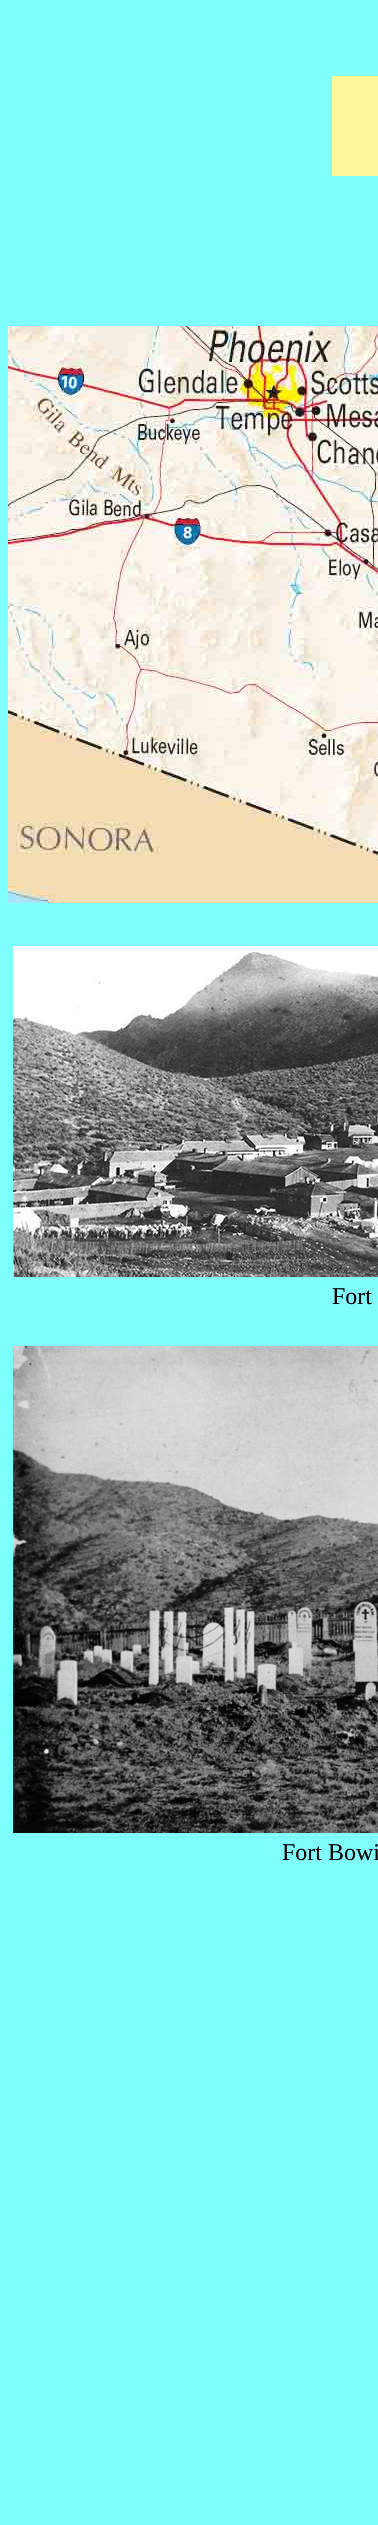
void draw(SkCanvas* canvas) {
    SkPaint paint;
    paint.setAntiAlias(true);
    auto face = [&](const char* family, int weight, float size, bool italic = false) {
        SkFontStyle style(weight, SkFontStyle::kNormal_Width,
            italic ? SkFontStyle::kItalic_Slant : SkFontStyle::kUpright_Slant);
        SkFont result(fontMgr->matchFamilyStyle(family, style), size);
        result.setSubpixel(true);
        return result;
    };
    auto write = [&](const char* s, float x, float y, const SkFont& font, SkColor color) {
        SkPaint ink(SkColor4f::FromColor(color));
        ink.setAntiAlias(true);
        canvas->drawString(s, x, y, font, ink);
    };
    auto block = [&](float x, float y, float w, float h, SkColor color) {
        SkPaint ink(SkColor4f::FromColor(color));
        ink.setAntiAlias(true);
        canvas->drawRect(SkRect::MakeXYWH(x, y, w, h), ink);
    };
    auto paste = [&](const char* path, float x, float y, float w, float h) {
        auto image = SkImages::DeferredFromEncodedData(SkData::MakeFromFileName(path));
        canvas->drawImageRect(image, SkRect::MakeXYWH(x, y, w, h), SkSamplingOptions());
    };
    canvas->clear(SkColorSetRGB(128, 255, 255));
    block(332, 76, 46, 100, SkColorSetRGB(255, 247, 154));
    paste("pic1.png", 8, 326, 370, 577);
    paste("pic2.png", 13, 946, 365, 331);
    auto kFont1 = face("Liberation Serif", 400, 24);
    write("Fort", 332, 1304, kFont1, SK_ColorBLACK);
    paste("pic3.png", 13, 1346, 365, 487);
    write("Fort Bowi", 282, 1860, kFont1, SK_ColorBLACK);
}
